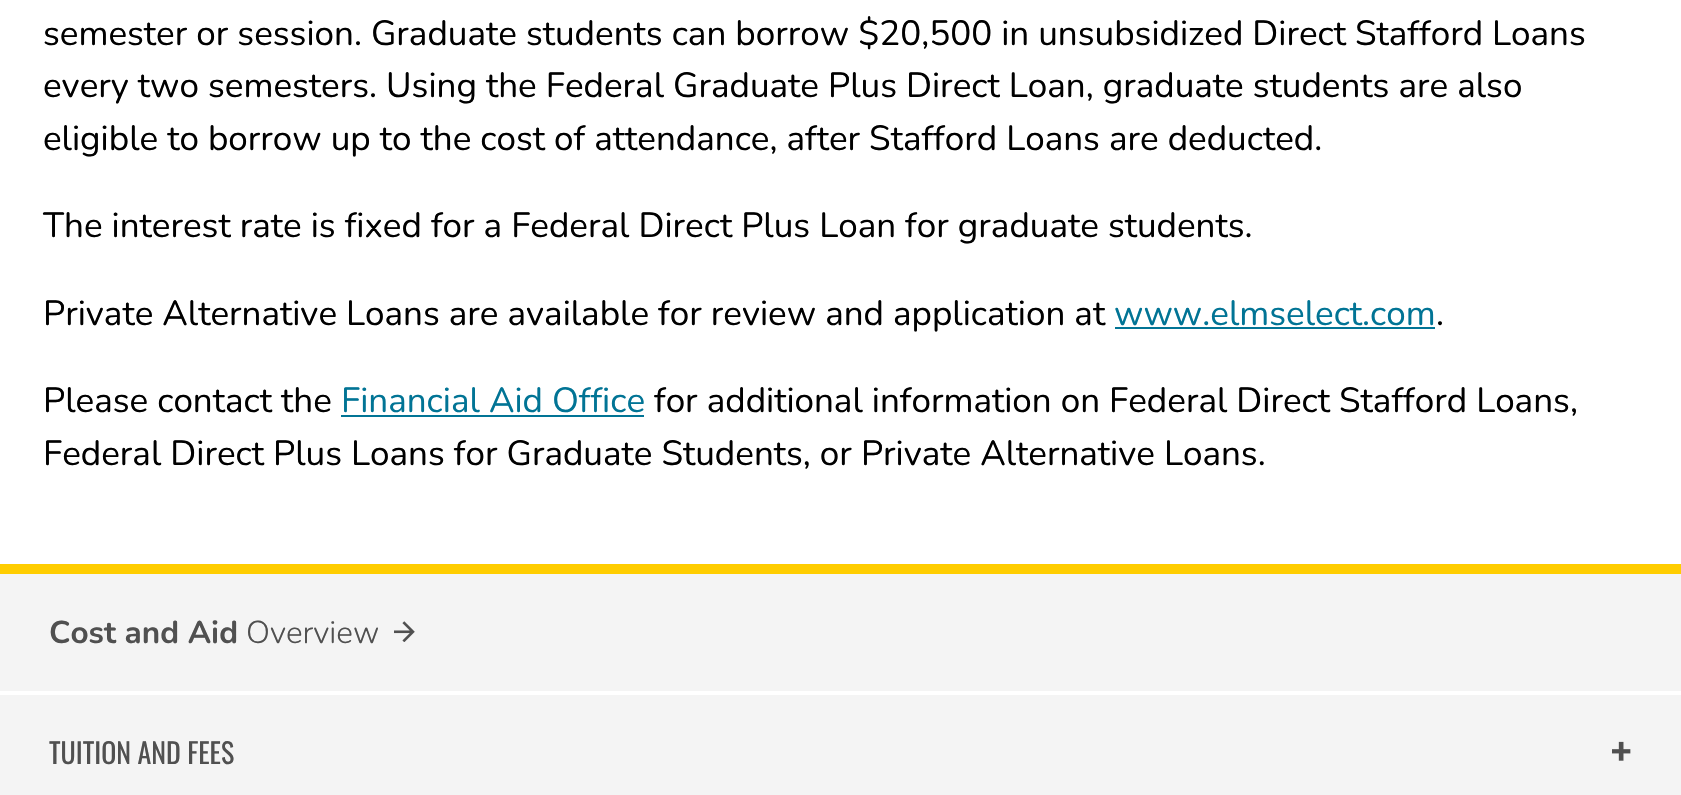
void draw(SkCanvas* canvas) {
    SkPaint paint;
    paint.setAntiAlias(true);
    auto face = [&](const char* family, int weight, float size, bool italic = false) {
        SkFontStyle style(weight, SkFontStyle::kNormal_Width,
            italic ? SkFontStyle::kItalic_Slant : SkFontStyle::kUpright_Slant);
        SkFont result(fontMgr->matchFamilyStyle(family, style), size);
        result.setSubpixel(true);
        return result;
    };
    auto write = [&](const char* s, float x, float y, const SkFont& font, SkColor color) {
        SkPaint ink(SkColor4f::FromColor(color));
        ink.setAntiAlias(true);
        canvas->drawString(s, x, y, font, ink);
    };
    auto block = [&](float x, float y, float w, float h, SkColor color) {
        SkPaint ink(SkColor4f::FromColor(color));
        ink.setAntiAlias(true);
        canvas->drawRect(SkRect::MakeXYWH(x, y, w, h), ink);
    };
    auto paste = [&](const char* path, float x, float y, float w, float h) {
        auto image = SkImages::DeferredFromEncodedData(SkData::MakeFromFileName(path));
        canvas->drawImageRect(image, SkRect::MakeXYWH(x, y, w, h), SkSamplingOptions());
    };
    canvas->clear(SK_ColorWHITE);
    auto kFont1 = face("Nunito", 400, 35);
    write("semester or session. Graduate students can borrow $20,500 in unsubsidized Direct Stafford Loans", 43, 45, kFont1, SK_ColorBLACK);
    write("every two semesters. Using the Federal Graduate Plus Direct Loan, graduate students are also", 43, 97, kFont1, SK_ColorBLACK);
    write("eligible to borrow up to the cost of attendance, after Stafford Loans are deducted.", 43, 150, kFont1, SK_ColorBLACK);
    write("The interest rate is fixed for a Federal Direct Plus Loan for graduate students.", 43, 237, kFont1, SK_ColorBLACK);
    write("Private Alternative Loans are available for review and application at", 43, 325, kFont1, SK_ColorBLACK);
    write("www.elmselect.com", 1114, 325, kFont1, SkColorSetRGB(1, 116, 149));
    block(1115, 327, 320, 2, SkColorSetRGB(1, 116, 149));
    write(".", 1436, 325, kFont1, SK_ColorBLACK);
    write("Please contact the", 43, 412, kFont1, SK_ColorBLACK);
    write("Financial Aid Office", 341, 412, kFont1, SkColorSetRGB(1, 116, 149));
    block(341, 415, 303, 2, SkColorSetRGB(1, 116, 149));
    write("for additional information on Federal Direct Stafford Loans,", 654, 412, kFont1, SK_ColorBLACK);
    write("Federal Direct Plus Loans for Graduate Students, or Private Alternative Loans.", 43, 465, kFont1, SK_ColorBLACK);
    block(0, 574, 1681, 221, SkColorSetRGB(244, 244, 244));
    block(0, 564, 1681, 10, SkColorSetRGB(255, 205, 0));
    auto kFont2 = face("Nunito", 700, 31.5f);
    write("Cost and Aid", 49, 643, kFont2, SkColorSetRGB(80, 80, 80));
    auto kFont3 = face("Nunito", 300, 31.5f);
    write("Overview", 246, 643, kFont3, SkColorSetRGB(80, 80, 80));
    paste("pic1.png", 394, 621, 21, 21);
    block(0, 691, 1681, 4, SK_ColorWHITE);
    auto kFont4 = face("Oswald", 400, 28);
    write("TUITION AND FEES", 49, 764, kFont4, SkColorSetRGB(80, 80, 80));
    paste("pic2.png", 1612, 741, 19, 20);
}
